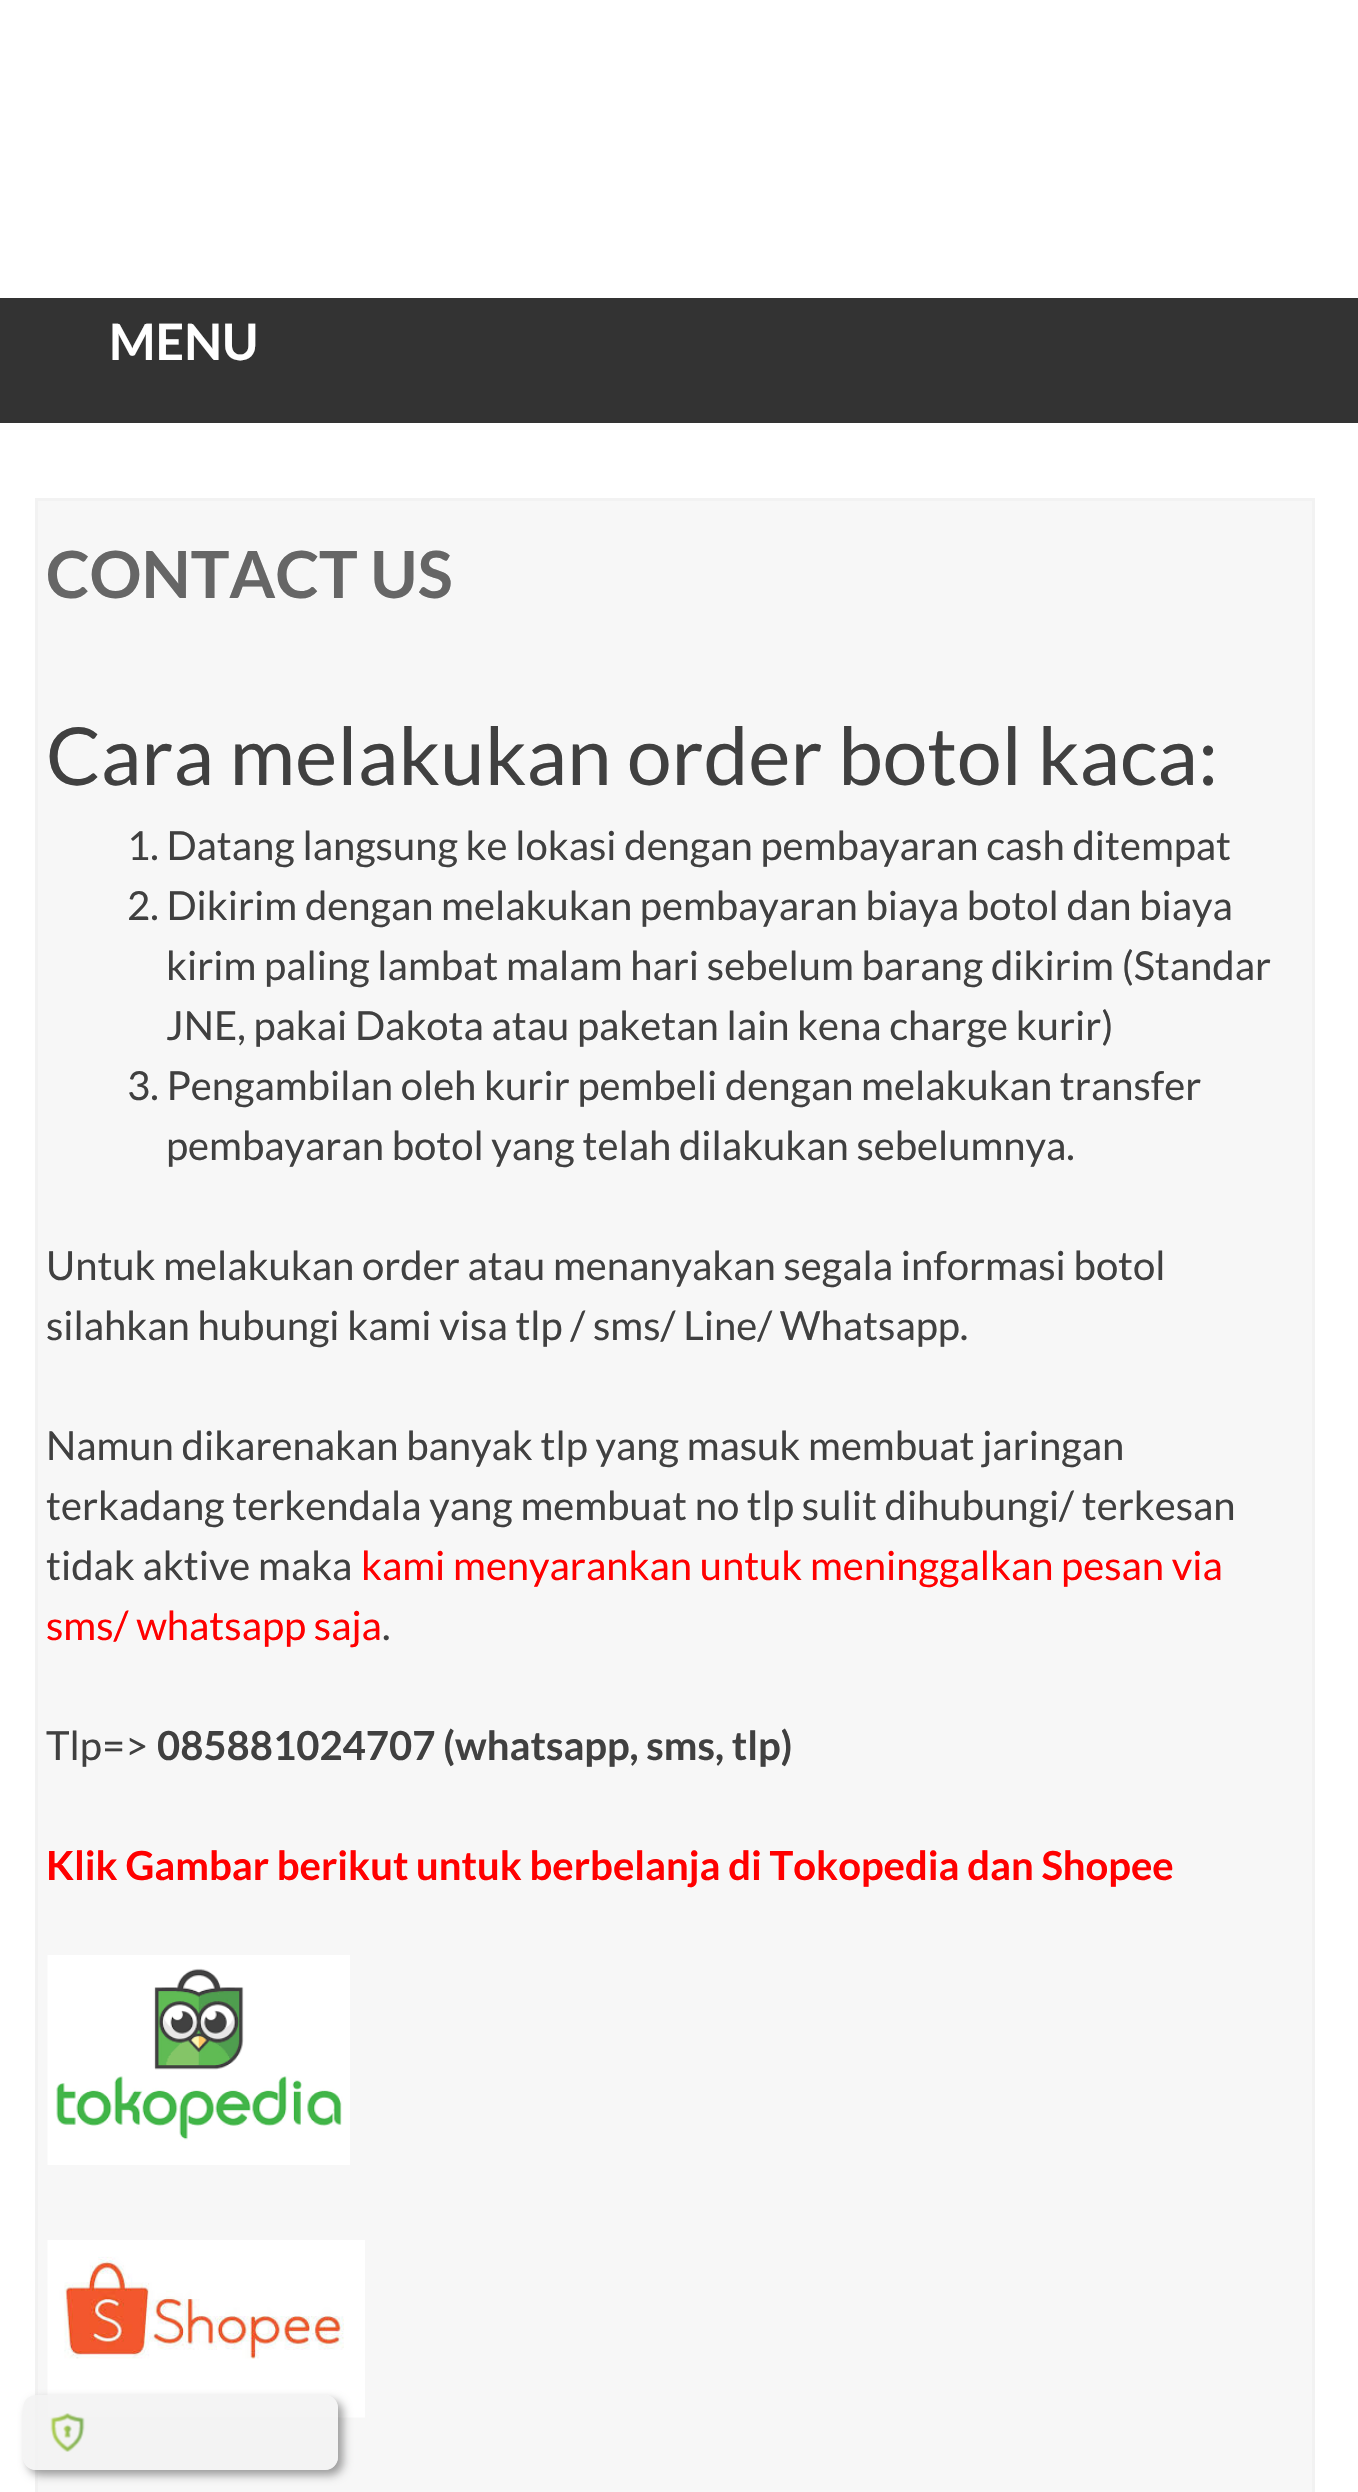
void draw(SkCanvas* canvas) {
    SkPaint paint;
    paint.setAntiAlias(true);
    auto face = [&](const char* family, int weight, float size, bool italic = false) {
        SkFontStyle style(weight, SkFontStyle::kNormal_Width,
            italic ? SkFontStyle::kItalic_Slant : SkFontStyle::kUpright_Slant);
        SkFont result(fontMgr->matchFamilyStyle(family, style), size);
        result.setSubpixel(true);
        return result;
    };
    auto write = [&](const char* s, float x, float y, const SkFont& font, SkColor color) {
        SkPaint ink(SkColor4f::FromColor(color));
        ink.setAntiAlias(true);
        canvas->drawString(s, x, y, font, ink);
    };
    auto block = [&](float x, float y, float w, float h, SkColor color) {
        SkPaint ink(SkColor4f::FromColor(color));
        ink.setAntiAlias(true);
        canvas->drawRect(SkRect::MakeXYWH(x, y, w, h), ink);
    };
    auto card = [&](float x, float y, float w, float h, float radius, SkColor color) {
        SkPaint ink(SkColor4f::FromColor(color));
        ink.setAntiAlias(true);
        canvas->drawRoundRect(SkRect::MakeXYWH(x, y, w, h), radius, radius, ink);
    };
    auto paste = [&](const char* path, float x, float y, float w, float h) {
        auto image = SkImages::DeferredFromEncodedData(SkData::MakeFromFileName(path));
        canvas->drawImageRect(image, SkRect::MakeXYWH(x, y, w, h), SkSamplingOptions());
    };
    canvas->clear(SK_ColorWHITE);
    block(0, 298, 1358, 125, SkColorSetRGB(51, 51, 51));
    auto kFont1 = face("Lato", 700, 50);
    write("MENU", 109, 360, kFont1, SK_ColorWHITE);
    paint.setColor(SkColorSetRGB(247, 247, 247));
    canvas->drawRect(SkRect::MakeXYWH(36.5f, 499.5f, 1277, 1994), paint);
    paint.setStyle(SkPaint::kStroke_Style);
    paint.setStrokeWidth(3);
    paint.setColor(SkColorSetRGB(242, 242, 242));
    canvas->drawRect(SkRect::MakeXYWH(36.5f, 499.5f, 1277, 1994), paint);
    auto kFont2 = face("Lato", 700, 65);
    write("CONTACT US", 46, 598, kFont2, SkColorSetRGB(102, 102, 102));
    auto kFont3 = face("Lato", 400, 80);
    write("Cara melakukan order botol kaca:", 46, 785, kFont3, SkColorSetRGB(64, 64, 64));
    auto kFont4 = face("Lato", 400, 40);
    write("1. Datang langsung ke lokasi dengan pembayaran cash ditempat", 127, 860, kFont4, SkColorSetRGB(64, 64, 64));
    write("2. Dikirim dengan melakukan pembayaran biaya botol dan biaya", 127, 920, kFont4, SkColorSetRGB(64, 64, 64));
    write("kirim paling lambat malam hari sebelum barang dikirim (Standar", 166, 980, kFont4, SkColorSetRGB(64, 64, 64));
    write("JNE, pakai Dakota atau paketan lain kena charge kurir)", 166, 1040, kFont4, SkColorSetRGB(64, 64, 64));
    write("3. Pengambilan oleh kurir pembeli dengan melakukan transfer", 127, 1100, kFont4, SkColorSetRGB(64, 64, 64));
    write("pembayaran botol yang telah dilakukan sebelumnya.", 166, 1160, kFont4, SkColorSetRGB(64, 64, 64));
    write("Untuk melakukan order atau menanyakan segala informasi botol", 46, 1280, kFont4, SkColorSetRGB(64, 64, 64));
    write("silahkan hubungi kami visa tlp / sms/ Line/ Whatsapp.", 46, 1340, kFont4, SkColorSetRGB(64, 64, 64));
    write("Namun dikarenakan banyak tlp yang masuk membuat jaringan", 46, 1460, kFont4, SkColorSetRGB(64, 64, 64));
    write("terkadang terkendala yang membuat no tlp sulit dihubungi/ terkesan", 46, 1520, kFont4, SkColorSetRGB(64, 64, 64));
    write("tidak aktive maka", 46, 1580, kFont4, SkColorSetRGB(64, 64, 64));
    write("kami menyarankan untuk meninggalkan pesan via", 361, 1580, kFont4, SkColorSetRGB(255, 0, 0));
    write("sms/ whatsapp saja", 46, 1640, kFont4, SkColorSetRGB(255, 0, 0));
    write(".", 382, 1640, kFont4, SkColorSetRGB(64, 64, 64));
    write("Tlp=>", 46, 1760, kFont4, SkColorSetRGB(64, 64, 64));
    auto kFont5 = face("Lato", 700, 40);
    write("085881024707 (whatsapp, sms, tlp)", 157, 1760, kFont5, SkColorSetRGB(64, 64, 64));
    write("Klik Gambar berikut untuk berbelanja di Tokopedia dan Shopee", 46, 1880, kFont5, SkColorSetRGB(255, 0, 0));
    paste("pic1.png", 47, 1955, 303, 210);
    paste("pic2.png", 47, 2240, 318, 178);
    canvas->save();
    canvas->clipPath(SkPathBuilder(SkPathFillType::kEvenOdd).moveTo(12, 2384).lineTo(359, 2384).lineTo(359, 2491).lineTo(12, 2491).close().moveTo(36, 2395).lineTo(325, 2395).cubicTo(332, 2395, 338, 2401, 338, 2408).lineTo(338, 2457).cubicTo(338, 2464, 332, 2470, 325, 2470).lineTo(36, 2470).cubicTo(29, 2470, 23, 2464, 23, 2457).lineTo(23, 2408).cubicTo(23, 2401, 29, 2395, 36, 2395).close().detach(), true);
    paint.setStyle(SkPaint::kFill_Style);
    paint.setColor(SkColorSetARGB(97, 0, 0, 0));
    paint.setMaskFilter(SkMaskFilter::MakeBlur(kNormal_SkBlurStyle, 5));
    canvas->drawRoundRect(SkRect::MakeXYWH(28, 2400, 315, 75), 13, 13, paint);
    paint.setMaskFilter(nullptr);
    canvas->restore();
    card(23, 2395, 315, 75, 13, SkColorSetARGB(201, 241, 241, 241));
    paste("pic3.png", 50, 2413, 35, 39);
}
